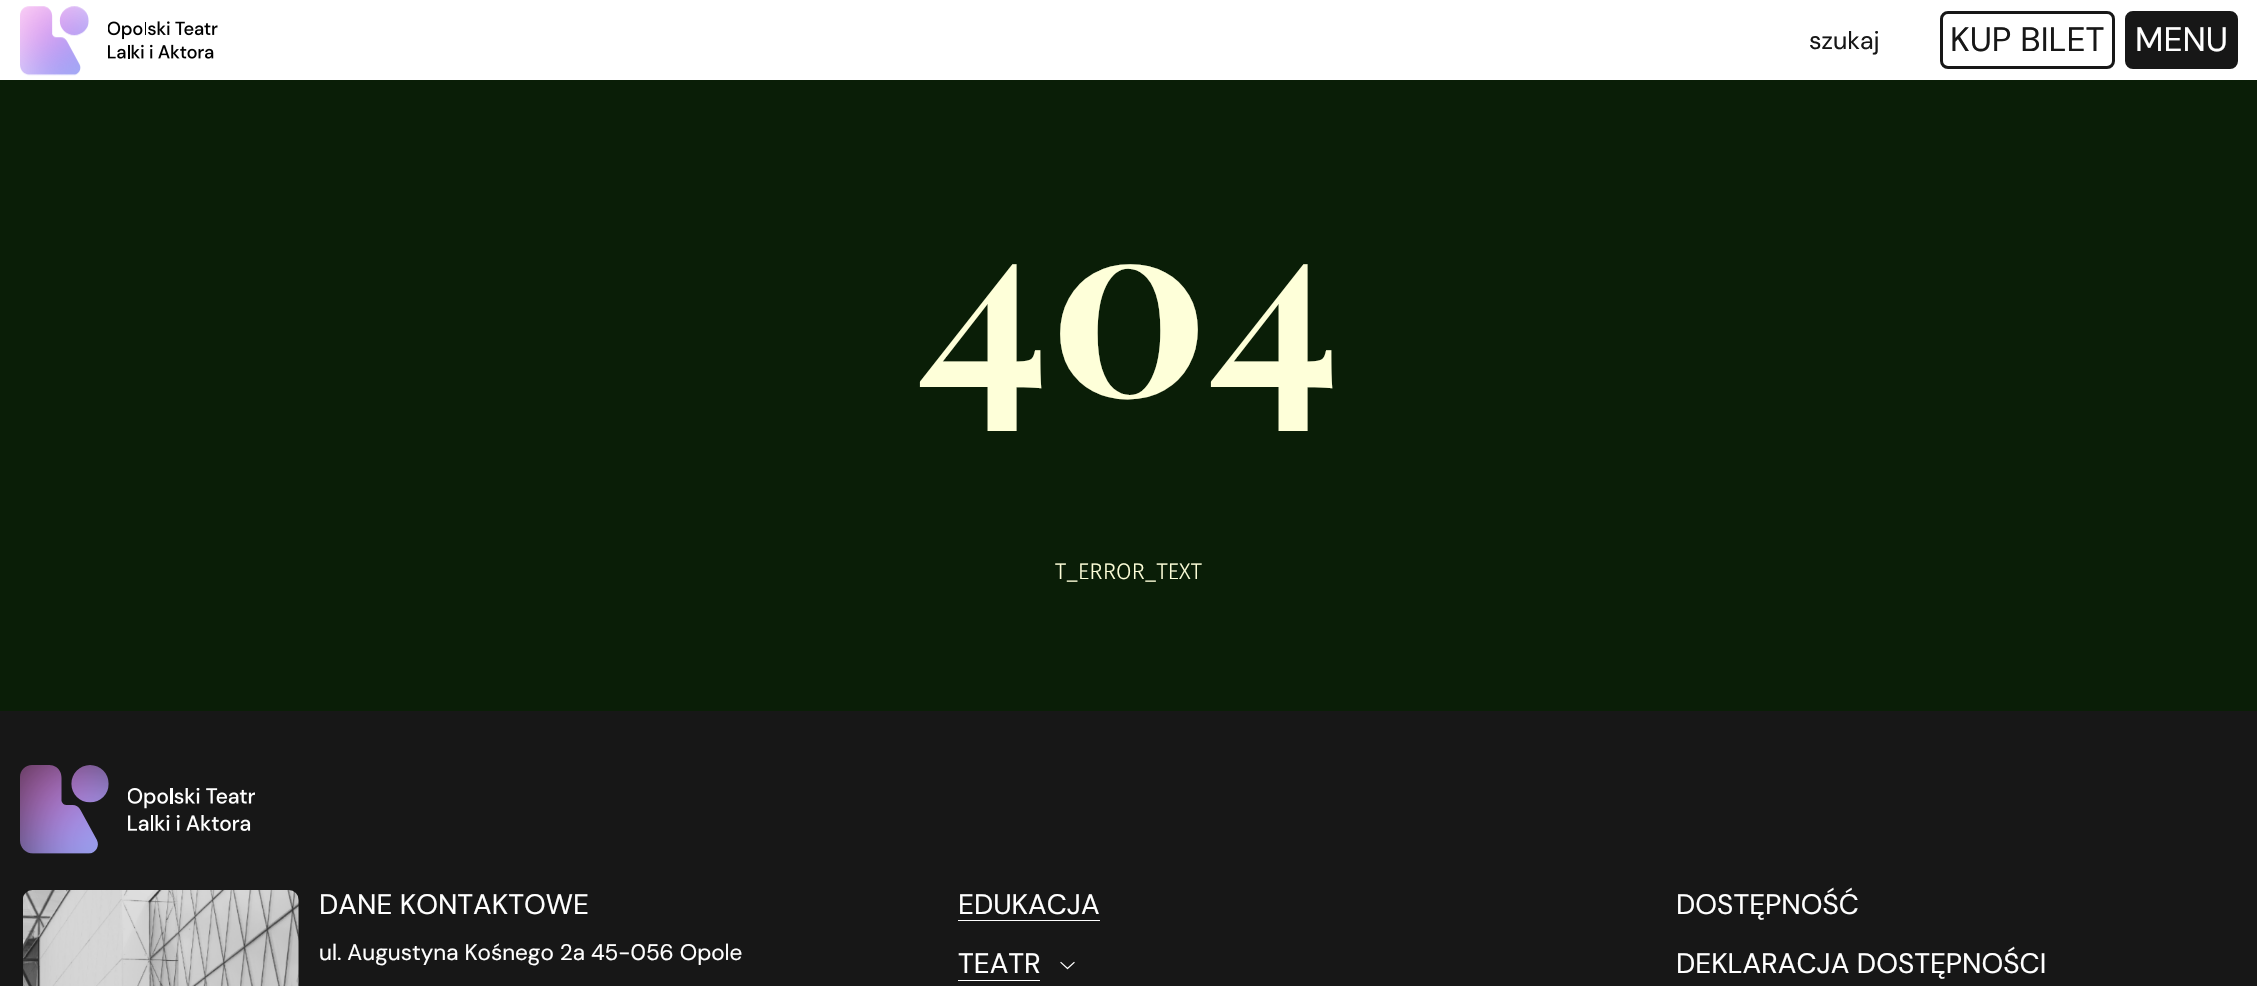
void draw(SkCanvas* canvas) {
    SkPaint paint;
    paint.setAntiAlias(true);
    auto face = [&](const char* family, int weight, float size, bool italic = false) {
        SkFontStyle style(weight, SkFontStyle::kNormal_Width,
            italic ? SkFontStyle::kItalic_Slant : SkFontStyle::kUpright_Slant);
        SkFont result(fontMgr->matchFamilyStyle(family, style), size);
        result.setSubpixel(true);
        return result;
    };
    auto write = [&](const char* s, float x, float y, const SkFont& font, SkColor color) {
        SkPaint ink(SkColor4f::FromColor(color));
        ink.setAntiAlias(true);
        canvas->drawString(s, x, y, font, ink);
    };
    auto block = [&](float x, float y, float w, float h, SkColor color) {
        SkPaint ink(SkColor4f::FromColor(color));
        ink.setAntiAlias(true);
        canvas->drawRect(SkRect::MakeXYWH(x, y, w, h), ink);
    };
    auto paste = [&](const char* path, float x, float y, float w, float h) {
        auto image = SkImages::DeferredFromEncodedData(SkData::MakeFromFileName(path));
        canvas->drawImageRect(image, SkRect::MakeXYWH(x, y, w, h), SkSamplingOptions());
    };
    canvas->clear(SkColorSetRGB(10, 30, 7));
    block(0, 0, 2257, 80, SK_ColorWHITE);
    paste("pic1.png", 20, 6, 69, 70);
    paste("pic2.png", 108, 21, 110, 38);
    auto kFont1 = face("DM Sans", 400, 25);
    write("szukaj", 1809, 49, kFont1, SkColorSetRGB(23, 23, 23));
    paint.setStyle(SkPaint::kStroke_Style);
    paint.setStrokeWidth(3);
    paint.setColor(SkColorSetRGB(23, 23, 23));
    canvas->drawRoundRect(SkRect::MakeXYWH(1941.5f, 12.5f, 172, 55), 6.5f, 6.5f, paint);
    auto kFont2 = face("DM Sans", 400, 33.75f);
    write("KUP BILET", 1950, 51, kFont2, SkColorSetRGB(23, 23, 23));
    paint.setStyle(SkPaint::kFill_Style);
    canvas->drawRoundRect(SkRect::MakeXYWH(2126.5f, 12.5f, 110, 55), 6.5f, 6.5f, paint);
    paint.setStyle(SkPaint::kStroke_Style);
    canvas->drawRoundRect(SkRect::MakeXYWH(2126.5f, 12.5f, 110, 55), 6.5f, 6.5f, paint);
    write("MENU", 2135, 51, kFont2, SK_ColorWHITE);
    auto kFont3 = face("Playfair Display", 700, 248);
    write("404", 918, 396, kFont3, SkColorSetRGB(254, 255, 217));
    auto kFont4 = face("Fira Sans", 300, 22.5f);
    write("T_ERROR_TEXT", 1055, 579, kFont4, SkColorSetRGB(254, 255, 217));
    block(0, 711, 2257, 275, SkColorSetRGB(23, 23, 23));
    paste("pic3.png", 20, 765, 89, 89);
    paste("pic4.png", 128, 788, 127, 43);
    paste("pic5.png", 23, 890, 276, 96);
    auto kFont5 = face("DM Sans", 400, 28.1f);
    write("DANE KONTAKTOWE", 319, 914, kFont5, SK_ColorWHITE);
    auto kFont6 = face("DM Sans", 400, 22.5f);
    write("ul. Augustyna Kośnego 2a 45-056 Opole", 319, 960, kFont6, SK_ColorWHITE);
    write("EDUKACJA", 958, 914, kFont5, SK_ColorWHITE);
    block(958, 920, 142, 1, SK_ColorWHITE);
    write("TEATR", 958, 973, kFont5, SK_ColorWHITE);
    block(958, 980, 82, 1, SK_ColorWHITE);
    paint.setStrokeWidth(1.2f);
    paint.setStrokeCap(SkPaint::kSquare_Cap);
    paint.setStrokeJoin(SkPaint::kRound_Join);
    paint.setColor(SK_ColorWHITE);
    canvas->drawPath(SkPathBuilder().moveTo(1074, 962.5f).lineTo(1067.5f, 968.5f).lineTo(1061, 962.5f).detach(), paint);
    write("DOSTĘPNOŚĆ", 1676, 914, kFont5, SK_ColorWHITE);
    write("DEKLARACJA DOSTĘPNOŚCI", 1676, 973, kFont5, SK_ColorWHITE);
}
